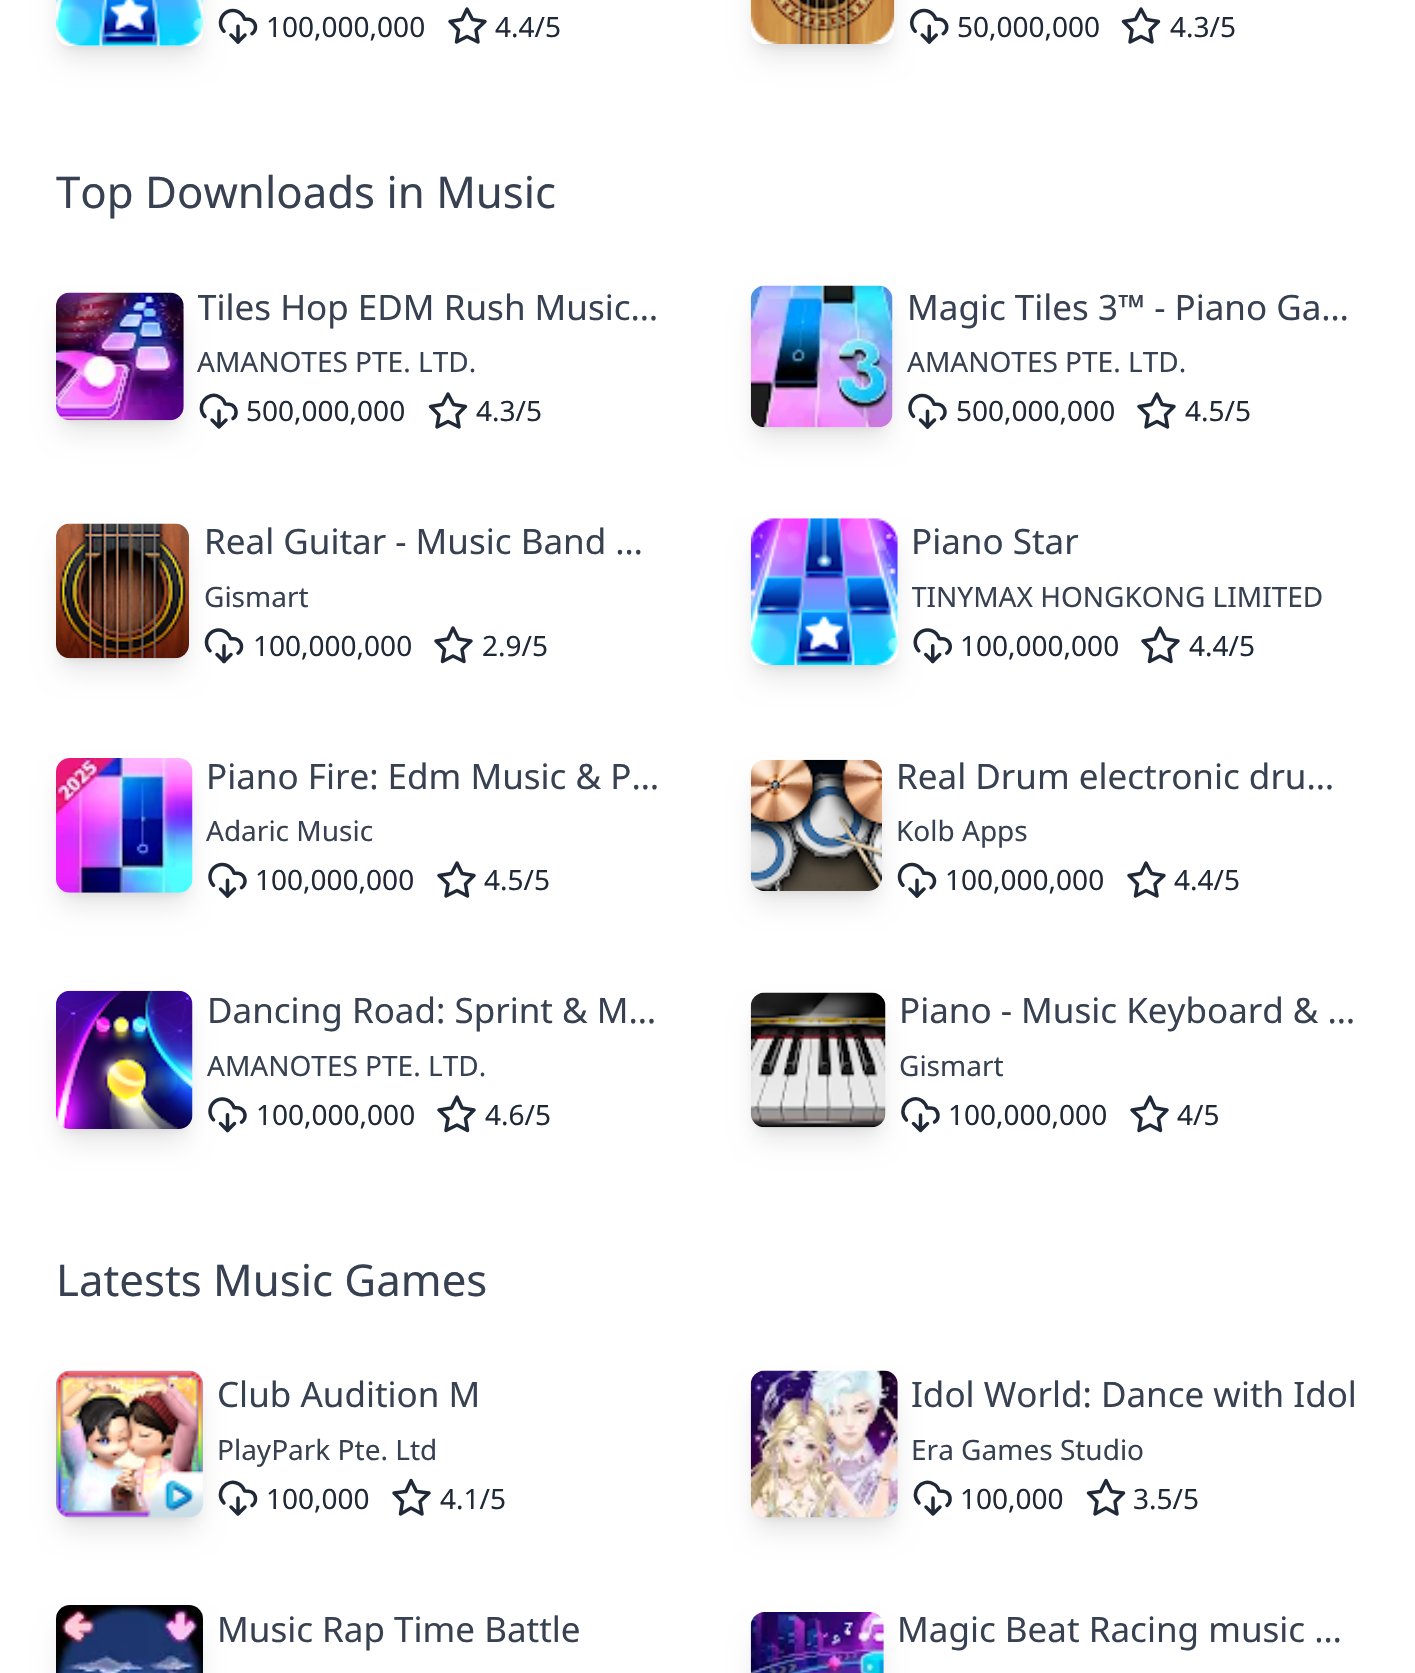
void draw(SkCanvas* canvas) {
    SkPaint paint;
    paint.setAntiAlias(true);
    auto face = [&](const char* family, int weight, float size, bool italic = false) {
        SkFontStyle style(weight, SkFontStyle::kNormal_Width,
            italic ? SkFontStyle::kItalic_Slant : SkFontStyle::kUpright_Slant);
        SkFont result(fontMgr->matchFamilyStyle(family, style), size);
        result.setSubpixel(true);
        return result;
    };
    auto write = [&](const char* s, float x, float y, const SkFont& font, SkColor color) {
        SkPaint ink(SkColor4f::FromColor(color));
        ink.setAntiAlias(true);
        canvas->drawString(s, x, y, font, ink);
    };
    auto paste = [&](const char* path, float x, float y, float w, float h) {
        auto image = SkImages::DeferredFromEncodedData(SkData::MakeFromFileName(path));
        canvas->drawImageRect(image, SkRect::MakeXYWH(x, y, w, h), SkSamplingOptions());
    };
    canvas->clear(SK_ColorWHITE);
    canvas->save();
    canvas->clipPath(SkPathBuilder(SkPathFillType::kEvenOdd).moveTo(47, 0).lineTo(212, 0).lineTo(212, 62).lineTo(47, 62).close().moveTo(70, -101).lineTo(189, -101).cubicTo(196.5f, -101, 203, -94.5f, 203, -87).lineTo(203, 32).cubicTo(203, 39.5f, 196.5f, 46, 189, 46).lineTo(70, 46).cubicTo(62.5f, 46, 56, 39.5f, 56, 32).lineTo(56, -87).cubicTo(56, -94.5f, 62.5f, -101, 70, -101).close().detach(), true);
    paint.setColor(SkColorSetARGB(26, 0, 0, 0));
    paint.setMaskFilter(SkMaskFilter::MakeBlur(kNormal_SkBlurStyle, 5));
    canvas->drawRoundRect(SkRect::MakeXYWH(63, -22, 133, 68), 7, 7, paint);
    paint.setMaskFilter(nullptr);
    canvas->restore();
    canvas->save();
    canvas->clipPath(SkPathBuilder(SkPathFillType::kEvenOdd).moveTo(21, 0).lineTo(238, 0).lineTo(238, 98).lineTo(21, 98).close().moveTo(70, -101).lineTo(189, -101).cubicTo(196.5f, -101, 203, -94.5f, 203, -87).lineTo(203, 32).cubicTo(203, 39.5f, 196.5f, 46, 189, 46).lineTo(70, 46).cubicTo(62.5f, 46, 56, 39.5f, 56, 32).lineTo(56, -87).cubicTo(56, -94.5f, 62.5f, -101, 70, -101).close().detach(), true);
    paint.setMaskFilter(SkMaskFilter::MakeBlur(kNormal_SkBlurStyle, 13));
    canvas->drawRoundRect(SkRect::MakeXYWH(61, -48, 137, 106), 9, 9, paint);
    paint.setMaskFilter(nullptr);
    canvas->restore();
    paste("pic1.png", 56, 0, 147, 46);
    paste("pic2.png", 218, 8, 40, 36);
    auto kFont1 = face("Noto Sans", 400, 28);
    write("100,000,000", 266, 37, kFont1, SkColorSetRGB(31, 41, 55));
    paint.setStyle(SkPaint::kStroke_Style);
    paint.setStrokeWidth(3.5f);
    paint.setStrokeCap(SkPaint::kRound_Cap);
    paint.setStrokeJoin(SkPaint::kRound_Join);
    paint.setColor(SkColorSetRGB(31, 41, 55));
    canvas->drawPath(SkPathBuilder().moveTo(467, 9).lineTo(472.5f, 19.5f).lineTo(485, 21.5f).lineTo(476, 30).lineTo(478, 42).lineTo(467, 36.5f).lineTo(456.5f, 42).lineTo(458.5f, 30).lineTo(450, 21.5f).lineTo(462, 19.5f).close().detach(), paint);
    write("4.4/5", 495, 37, kFont1, SkColorSetRGB(31, 41, 55));
    canvas->save();
    canvas->clipPath(SkPathBuilder(SkPathFillType::kEvenOdd).moveTo(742, 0).lineTo(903, 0).lineTo(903, 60).lineTo(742, 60).close().moveTo(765, -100).lineTo(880, -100).cubicTo(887.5f, -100, 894, -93.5f, 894, -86).lineTo(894, 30).cubicTo(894, 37.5f, 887.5f, 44, 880, 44).lineTo(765, 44).cubicTo(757.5f, 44, 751, 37.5f, 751, 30).lineTo(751, -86).cubicTo(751, -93.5f, 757.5f, -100, 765, -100).close().detach(), true);
    paint.setStyle(SkPaint::kFill_Style);
    paint.setColor(SkColorSetARGB(26, 0, 0, 0));
    paint.setMaskFilter(SkMaskFilter::MakeBlur(kNormal_SkBlurStyle, 5));
    canvas->drawRoundRect(SkRect::MakeXYWH(758, -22, 129, 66), 7, 7, paint);
    paint.setMaskFilter(nullptr);
    canvas->restore();
    canvas->save();
    canvas->clipPath(SkPathBuilder(SkPathFillType::kEvenOdd).moveTo(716, 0).lineTo(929, 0).lineTo(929, 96).lineTo(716, 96).close().moveTo(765, -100).lineTo(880, -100).cubicTo(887.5f, -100, 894, -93.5f, 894, -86).lineTo(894, 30).cubicTo(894, 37.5f, 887.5f, 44, 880, 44).lineTo(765, 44).cubicTo(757.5f, 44, 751, 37.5f, 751, 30).lineTo(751, -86).cubicTo(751, -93.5f, 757.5f, -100, 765, -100).close().detach(), true);
    paint.setMaskFilter(SkMaskFilter::MakeBlur(kNormal_SkBlurStyle, 13));
    canvas->drawRoundRect(SkRect::MakeXYWH(756, -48, 133, 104), 9, 9, paint);
    paint.setMaskFilter(nullptr);
    canvas->restore();
    paste("pic3.png", 750, 0, 145, 44);
    paste("pic4.png", 910, 8, 39, 36);
    write("50,000,000", 957, 37, kFont1, SkColorSetRGB(31, 41, 55));
    paint.setStyle(SkPaint::kStroke_Style);
    paint.setColor(SkColorSetRGB(31, 41, 55));
    canvas->drawPath(SkPathBuilder().moveTo(1141, 9).lineTo(1146.5f, 19.5f).lineTo(1158.5f, 21.5f).lineTo(1150, 30).lineTo(1152, 42).lineTo(1141, 36.5f).lineTo(1130, 42).lineTo(1132, 30).lineTo(1123.5f, 21.5f).lineTo(1135.5f, 19.5f).close().detach(), paint);
    write("4.3/5", 1170, 37, kFont1, SkColorSetRGB(31, 41, 55));
    auto kFont2 = face("Noto Sans", 400, 43.75f);
    write("Top Downloads in Music", 56, 208, kFont2, SkColorSetRGB(55, 65, 81));
    paint.setStyle(SkPaint::kFill_Style);
    paint.setColor(SkColorSetARGB(26, 0, 0, 0));
    paint.setMaskFilter(SkMaskFilter::MakeBlur(kNormal_SkBlurStyle, 5));
    canvas->drawRoundRect(SkRect::MakeXYWH(63, 306, 114, 114), 7, 7, paint);
    paint.setMaskFilter(nullptr);
    paint.setMaskFilter(SkMaskFilter::MakeBlur(kNormal_SkBlurStyle, 13));
    canvas->drawRoundRect(SkRect::MakeXYWH(61, 315, 118, 117), 9, 9, paint);
    paint.setMaskFilter(nullptr);
    paste("pic5.png", 56, 292, 128, 129);
    canvas->save();
    canvas->clipRect(SkRect::MakeXYWH(198, 282, 469, 52));
    auto kFont3 = face("Noto Sans", 400, 35);
    write("Tiles Hop EDM Rush Music…", 197, 320, kFont3, SkColorSetRGB(55, 65, 81));
    canvas->restore();
    write("AMANOTES PTE. LTD.", 197, 372, kFont1, SkColorSetRGB(55, 65, 81));
    paint.setStyle(SkPaint::kStroke_Style);
    paint.setColor(SkColorSetRGB(31, 41, 55));
    canvas->drawPath(SkPathBuilder().moveTo(205, 416.5f).cubicTo(195, 406.5f, 207.5f, 390, 219.5f, 397).cubicTo(222.5f, 398.5f, 224.5f, 401.5f, 225, 404).cubicTo(227.5f, 404, 230, 404, 232, 405).cubicTo(237, 408, 237.5f, 415.5f, 233, 418.5f).moveTo(219, 411).lineTo(219, 427).moveTo(212, 420).lineTo(219, 427).lineTo(226, 420).detach(), paint);
    write("500,000,000", 246, 421, kFont1, SkColorSetRGB(31, 41, 55));
    canvas->drawPath(SkPathBuilder().moveTo(448, 394).lineTo(453.5f, 404.5f).lineTo(465.5f, 406.5f).lineTo(457, 415).lineTo(459, 427).lineTo(448, 421.5f).lineTo(437, 427).lineTo(439, 415).lineTo(430.5f, 406.5f).lineTo(442.5f, 404.5f).close().detach(), paint);
    write("4.3/5", 476, 421, kFont1, SkColorSetRGB(31, 41, 55));
    paint.setStyle(SkPaint::kFill_Style);
    paint.setColor(SkColorSetARGB(26, 0, 0, 0));
    paint.setMaskFilter(SkMaskFilter::MakeBlur(kNormal_SkBlurStyle, 5));
    canvas->drawRoundRect(SkRect::MakeXYWH(758, 299, 128, 128), 7, 7, paint);
    paint.setMaskFilter(nullptr);
    paint.setMaskFilter(SkMaskFilter::MakeBlur(kNormal_SkBlurStyle, 13));
    canvas->drawRoundRect(SkRect::MakeXYWH(756, 308, 131, 131), 9, 9, paint);
    paint.setMaskFilter(nullptr);
    paste("pic6.png", 750, 285, 143, 143);
    write("Magic Tiles 3™ - Piano Ga…", 907, 320, kFont3, SkColorSetRGB(55, 65, 81));
    write("AMANOTES PTE. LTD.", 907, 372, kFont1, SkColorSetRGB(55, 65, 81));
    paste("pic7.png", 908, 393, 39, 36);
    write("500,000,000", 956, 421, kFont1, SkColorSetRGB(31, 41, 55));
    paint.setStyle(SkPaint::kStroke_Style);
    paint.setColor(SkColorSetRGB(31, 41, 55));
    canvas->drawPath(SkPathBuilder().moveTo(1157, 394).lineTo(1162, 404.5f).lineTo(1174, 406.5f).lineTo(1165.5f, 415).lineTo(1167.5f, 427).lineTo(1157, 421.5f).lineTo(1146, 427).lineTo(1148, 415).lineTo(1139, 406.5f).lineTo(1151.5f, 404.5f).close().detach(), paint);
    write("4.5/5", 1185, 421, kFont1, SkColorSetRGB(31, 41, 55));
    paint.setStyle(SkPaint::kFill_Style);
    paint.setColor(SkColorSetARGB(26, 0, 0, 0));
    paint.setMaskFilter(SkMaskFilter::MakeBlur(kNormal_SkBlurStyle, 5));
    canvas->drawRoundRect(SkRect::MakeXYWH(63, 537, 119, 121), 7, 7, paint);
    paint.setMaskFilter(nullptr);
    paint.setMaskFilter(SkMaskFilter::MakeBlur(kNormal_SkBlurStyle, 13));
    canvas->drawRoundRect(SkRect::MakeXYWH(61, 546, 123, 124), 9, 9, paint);
    paint.setMaskFilter(nullptr);
    paste("pic8.png", 56, 523, 133, 136);
    write("Real Guitar - Music Band …", 204, 554, kFont3, SkColorSetRGB(55, 65, 81));
    write("Gismart", 204, 607, kFont1, SkColorSetRGB(55, 65, 81));
    paste("pic9.png", 204, 628, 40, 36);
    write("100,000,000", 253, 656, kFont1, SkColorSetRGB(31, 41, 55));
    paint.setStyle(SkPaint::kStroke_Style);
    paint.setColor(SkColorSetRGB(31, 41, 55));
    canvas->drawPath(SkPathBuilder().moveTo(453, 628).lineTo(458.5f, 639).lineTo(471, 641).lineTo(462, 649.5f).lineTo(464, 661.5f).lineTo(453, 656).lineTo(442.5f, 661.5f).lineTo(444.5f, 649.5f).lineTo(436, 641).lineTo(448, 639).close().detach(), paint);
    write("2.9/5", 482, 656, kFont1, SkColorSetRGB(31, 41, 55));
    canvas->save();
    canvas->clipPath(SkPathBuilder(SkPathFillType::kEvenOdd).moveTo(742, 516).lineTo(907, 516).lineTo(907, 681).lineTo(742, 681).close().moveTo(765, 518).lineTo(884, 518).cubicTo(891.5f, 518, 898, 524.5f, 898, 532).lineTo(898, 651).cubicTo(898, 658.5f, 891.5f, 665, 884, 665).lineTo(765, 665).cubicTo(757.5f, 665, 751, 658.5f, 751, 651).lineTo(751, 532).cubicTo(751, 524.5f, 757.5f, 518, 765, 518).close().detach(), true);
    paint.setStyle(SkPaint::kFill_Style);
    paint.setColor(SkColorSetARGB(26, 0, 0, 0));
    paint.setMaskFilter(SkMaskFilter::MakeBlur(kNormal_SkBlurStyle, 5));
    canvas->drawRoundRect(SkRect::MakeXYWH(758, 532, 133, 133), 7, 7, paint);
    paint.setMaskFilter(nullptr);
    canvas->restore();
    canvas->save();
    canvas->clipPath(SkPathBuilder(SkPathFillType::kEvenOdd).moveTo(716, 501).lineTo(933, 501).lineTo(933, 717).lineTo(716, 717).close().moveTo(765, 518).lineTo(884, 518).cubicTo(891.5f, 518, 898, 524.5f, 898, 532).lineTo(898, 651).cubicTo(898, 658.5f, 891.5f, 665, 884, 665).lineTo(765, 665).cubicTo(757.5f, 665, 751, 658.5f, 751, 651).lineTo(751, 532).cubicTo(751, 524.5f, 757.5f, 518, 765, 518).close().detach(), true);
    paint.setMaskFilter(SkMaskFilter::MakeBlur(kNormal_SkBlurStyle, 13));
    canvas->drawRoundRect(SkRect::MakeXYWH(756, 541, 137, 136), 9, 9, paint);
    paint.setMaskFilter(nullptr);
    canvas->restore();
    paste("pic10.png", 750, 518, 148, 148);
    write("Piano Star", 911, 554, kFont3, SkColorSetRGB(55, 65, 81));
    canvas->save();
    canvas->clipRect(SkRect::MakeXYWH(912, 576, 448, 42));
    write("TINYMAX HONGKONG LIMITED", 911, 607, kFont1, SkColorSetRGB(55, 65, 81));
    canvas->restore();
    paste("pic11.png", 913, 628, 39, 36);
    write("100,000,000", 960, 656, kFont1, SkColorSetRGB(31, 41, 55));
    paint.setStyle(SkPaint::kStroke_Style);
    paint.setColor(SkColorSetRGB(31, 41, 55));
    canvas->drawPath(SkPathBuilder().moveTo(1160, 628).lineTo(1165.5f, 639).lineTo(1178, 641).lineTo(1169, 649.5f).lineTo(1171, 661.5f).lineTo(1160, 656).lineTo(1149.5f, 661.5f).lineTo(1151.5f, 649.5f).lineTo(1143, 641).lineTo(1155, 639).close().detach(), paint);
    write("4.4/5", 1189, 656, kFont1, SkColorSetRGB(31, 41, 55));
    paint.setStyle(SkPaint::kFill_Style);
    paint.setColor(SkColorSetARGB(26, 0, 0, 0));
    paint.setMaskFilter(SkMaskFilter::MakeBlur(kNormal_SkBlurStyle, 5));
    canvas->drawRoundRect(SkRect::MakeXYWH(63, 772, 123, 121), 7, 7, paint);
    paint.setMaskFilter(nullptr);
    paint.setMaskFilter(SkMaskFilter::MakeBlur(kNormal_SkBlurStyle, 13));
    canvas->drawRoundRect(SkRect::MakeXYWH(61, 781, 126, 124), 9, 9, paint);
    paint.setMaskFilter(nullptr);
    paste("pic12.png", 56, 758, 137, 135);
    write("Piano Fire: Edm Music & P…", 206, 789, kFont3, SkColorSetRGB(55, 65, 81));
    write("Adaric Music", 206, 841, kFont1, SkColorSetRGB(55, 65, 81));
    paste("pic13.png", 208, 862, 39, 36);
    write("100,000,000", 255, 890, kFont1, SkColorSetRGB(31, 41, 55));
    paint.setStyle(SkPaint::kStroke_Style);
    paint.setColor(SkColorSetRGB(31, 41, 55));
    canvas->drawPath(SkPathBuilder().moveTo(457, 863).lineTo(462, 873.5f).lineTo(474, 875.5f).lineTo(465.5f, 884).lineTo(467.5f, 896).lineTo(457, 890.5f).lineTo(446, 896).lineTo(448, 884).lineTo(439, 875.5f).lineTo(451.5f, 873.5f).close().detach(), paint);
    write("4.5/5", 484, 890, kFont1, SkColorSetRGB(31, 41, 55));
    paint.setStyle(SkPaint::kFill_Style);
    paint.setColor(SkColorSetARGB(26, 0, 0, 0));
    paint.setMaskFilter(SkMaskFilter::MakeBlur(kNormal_SkBlurStyle, 5));
    canvas->drawRoundRect(SkRect::MakeXYWH(758, 774, 117, 117), 7, 7, paint);
    paint.setMaskFilter(nullptr);
    paint.setMaskFilter(SkMaskFilter::MakeBlur(kNormal_SkBlurStyle, 13));
    canvas->drawRoundRect(SkRect::MakeXYWH(756, 782, 121, 121), 9, 9, paint);
    paint.setMaskFilter(nullptr);
    paste("pic14.png", 750, 759, 132, 132);
    write("Real Drum electronic dru…", 896, 789, kFont3, SkColorSetRGB(55, 65, 81));
    write("Kolb Apps", 896, 841, kFont1, SkColorSetRGB(55, 65, 81));
    paste("pic15.png", 897, 862, 40, 36);
    write("100,000,000", 945, 890, kFont1, SkColorSetRGB(31, 41, 55));
    paint.setStyle(SkPaint::kStroke_Style);
    paint.setColor(SkColorSetRGB(31, 41, 55));
    canvas->drawPath(SkPathBuilder().moveTo(1146, 863).lineTo(1151.5f, 873.5f).lineTo(1164, 875.5f).lineTo(1155, 884).lineTo(1157, 896).lineTo(1146, 890.5f).lineTo(1135.5f, 896).lineTo(1137.5f, 884).lineTo(1129, 875.5f).lineTo(1141, 873.5f).close().detach(), paint);
    write("4.4/5", 1174, 890, kFont1, SkColorSetRGB(31, 41, 55));
    paint.setStyle(SkPaint::kFill_Style);
    paint.setColor(SkColorSetARGB(26, 0, 0, 0));
    paint.setMaskFilter(SkMaskFilter::MakeBlur(kNormal_SkBlurStyle, 5));
    canvas->drawRoundRect(SkRect::MakeXYWH(63, 1005, 123, 124), 7, 7, paint);
    paint.setMaskFilter(nullptr);
    paint.setMaskFilter(SkMaskFilter::MakeBlur(kNormal_SkBlurStyle, 13));
    canvas->drawRoundRect(SkRect::MakeXYWH(61, 1013, 126, 128), 9, 9, paint);
    paint.setMaskFilter(nullptr);
    paste("pic16.png", 56, 990, 137, 139);
    write("Dancing Road: Sprint & M…", 207, 1023, kFont3, SkColorSetRGB(55, 65, 81));
    write("AMANOTES PTE. LTD.", 207, 1076, kFont1, SkColorSetRGB(55, 65, 81));
    paste("pic17.png", 208, 1097, 39, 36);
    write("100,000,000", 256, 1125, kFont1, SkColorSetRGB(31, 41, 55));
    paint.setStyle(SkPaint::kStroke_Style);
    paint.setColor(SkColorSetRGB(31, 41, 55));
    canvas->drawPath(SkPathBuilder().moveTo(457, 1097).lineTo(462, 1108).lineTo(474, 1110).lineTo(465.5f, 1118.5f).lineTo(467.5f, 1130.5f).lineTo(457, 1125).lineTo(446, 1130.5f).lineTo(448, 1118.5f).lineTo(439, 1110).lineTo(451.5f, 1108).close().detach(), paint);
    write("4.6/5", 485, 1125, kFont1, SkColorSetRGB(31, 41, 55));
    paint.setStyle(SkPaint::kFill_Style);
    paint.setColor(SkColorSetARGB(26, 0, 0, 0));
    paint.setMaskFilter(SkMaskFilter::MakeBlur(kNormal_SkBlurStyle, 5));
    canvas->drawRoundRect(SkRect::MakeXYWH(758, 1006, 121, 121), 7, 7, paint);
    paint.setMaskFilter(nullptr);
    paint.setMaskFilter(SkMaskFilter::MakeBlur(kNormal_SkBlurStyle, 13));
    canvas->drawRoundRect(SkRect::MakeXYWH(756, 1015, 124, 124), 9, 9, paint);
    paint.setMaskFilter(nullptr);
    paste("pic18.png", 750, 992, 136, 136);
    write("Piano - Music Keyboard & …", 899, 1023, kFont3, SkColorSetRGB(55, 65, 81));
    write("Gismart", 899, 1076, kFont1, SkColorSetRGB(55, 65, 81));
    paint.setStyle(SkPaint::kStroke_Style);
    paint.setColor(SkColorSetRGB(31, 41, 55));
    canvas->drawPath(SkPathBuilder().moveTo(906.5f, 1120).cubicTo(896.5f, 1110, 909, 1093.5f, 921.5f, 1100.5f).cubicTo(924, 1102, 926, 1105, 927, 1108).cubicTo(929.5f, 1108, 931.5f, 1107.5f, 934, 1108.5f).cubicTo(939, 1111.5f, 939.5f, 1119, 934.5f, 1122).moveTo(920.5f, 1115).lineTo(920.5f, 1130.5f).moveTo(913.5f, 1123.5f).lineTo(920.5f, 1130.5f).lineTo(927.5f, 1123.5f).detach(), paint);
    write("100,000,000", 948, 1125, kFont1, SkColorSetRGB(31, 41, 55));
    canvas->drawPath(SkPathBuilder().moveTo(1150, 1097).lineTo(1155, 1108).lineTo(1167, 1110).lineTo(1158.5f, 1118.5f).lineTo(1160.5f, 1130.5f).lineTo(1150, 1125).lineTo(1139, 1130.5f).lineTo(1141, 1118.5f).lineTo(1132, 1110).lineTo(1144.5f, 1108).close().detach(), paint);
    write("4/5", 1177, 1125, kFont1, SkColorSetRGB(31, 41, 55));
    write("Latests Music Games", 56, 1296, kFont2, SkColorSetRGB(55, 65, 81));
    paint.setStyle(SkPaint::kFill_Style);
    paint.setColor(SkColorSetARGB(26, 0, 0, 0));
    paint.setMaskFilter(SkMaskFilter::MakeBlur(kNormal_SkBlurStyle, 5));
    canvas->drawRoundRect(SkRect::MakeXYWH(63, 1384, 133, 133), 7, 7, paint);
    paint.setMaskFilter(nullptr);
    paint.setMaskFilter(SkMaskFilter::MakeBlur(kNormal_SkBlurStyle, 13));
    canvas->drawRoundRect(SkRect::MakeXYWH(61, 1393, 137, 137), 9, 9, paint);
    paint.setMaskFilter(nullptr);
    paste("pic19.png", 56, 1370, 147, 148);
    write("Club Audition M", 217, 1407, kFont3, SkColorSetRGB(55, 65, 81));
    write("PlayPark Pte. Ltd", 217, 1460, kFont1, SkColorSetRGB(55, 65, 81));
    paint.setStyle(SkPaint::kStroke_Style);
    paint.setColor(SkColorSetRGB(31, 41, 55));
    canvas->drawPath(SkPathBuilder().moveTo(224, 1503).cubicTo(214, 1493, 226.5f, 1477, 239, 1484).cubicTo(241.5f, 1485.5f, 243.5f, 1488, 244.5f, 1491).cubicTo(247, 1491, 249, 1491, 251.5f, 1492).cubicTo(256.5f, 1494.5f, 257, 1502, 252, 1505.5f).moveTo(238, 1498).lineTo(238, 1514).moveTo(231, 1507).lineTo(238, 1514).lineTo(245, 1507).detach(), paint);
    write("100,000", 266, 1509, kFont1, SkColorSetRGB(31, 41, 55));
    canvas->drawPath(SkPathBuilder().moveTo(411, 1480.5f).lineTo(416.5f, 1491.5f).lineTo(429, 1493).lineTo(420, 1501.5f).lineTo(422, 1514).lineTo(411, 1508).lineTo(400.5f, 1514).lineTo(402.5f, 1501.5f).lineTo(394, 1493).lineTo(406, 1491.5f).close().detach(), paint);
    write("4.1/5", 440, 1509, kFont1, SkColorSetRGB(31, 41, 55));
    paint.setStyle(SkPaint::kFill_Style);
    paint.setColor(SkColorSetARGB(26, 0, 0, 0));
    paint.setMaskFilter(SkMaskFilter::MakeBlur(kNormal_SkBlurStyle, 5));
    canvas->drawRoundRect(SkRect::MakeXYWH(758, 1384, 133, 133), 7, 7, paint);
    paint.setMaskFilter(nullptr);
    paint.setMaskFilter(SkMaskFilter::MakeBlur(kNormal_SkBlurStyle, 13));
    canvas->drawRoundRect(SkRect::MakeXYWH(756, 1393, 137, 137), 9, 9, paint);
    paint.setMaskFilter(nullptr);
    paste("pic20.png", 750, 1370, 148, 148);
    write("Idol World: Dance with Idol", 911, 1407, kFont3, SkColorSetRGB(55, 65, 81));
    write("Era Games Studio", 911, 1460, kFont1, SkColorSetRGB(55, 65, 81));
    paint.setStyle(SkPaint::kStroke_Style);
    paint.setColor(SkColorSetRGB(31, 41, 55));
    canvas->drawPath(SkPathBuilder().moveTo(919, 1503).cubicTo(909, 1493, 921.5f, 1477, 933.5f, 1484).cubicTo(936.5f, 1485.5f, 938.5f, 1488, 939, 1491).cubicTo(941.5f, 1491, 944, 1491, 946, 1492).cubicTo(951, 1494.5f, 951.5f, 1502, 947, 1505.5f).moveTo(933, 1498).lineTo(933, 1514).moveTo(926, 1507).lineTo(933, 1514).lineTo(940, 1507).detach(), paint);
    write("100,000", 960, 1509, kFont1, SkColorSetRGB(31, 41, 55));
    canvas->drawPath(SkPathBuilder().moveTo(1106, 1480.5f).lineTo(1111.5f, 1491.5f).lineTo(1123.5f, 1493).lineTo(1115, 1501.5f).lineTo(1117, 1514).lineTo(1106, 1508).lineTo(1095, 1514).lineTo(1097, 1501.5f).lineTo(1088.5f, 1493).lineTo(1100.5f, 1491.5f).close().detach(), paint);
    write("3.5/5", 1133, 1509, kFont1, SkColorSetRGB(31, 41, 55));
    paint.setStyle(SkPaint::kFill_Style);
    paint.setColor(SkColorSetARGB(26, 0, 0, 0));
    paint.setMaskFilter(SkMaskFilter::MakeBlur(kNormal_SkBlurStyle, 13));
    canvas->drawRoundRect(SkRect::MakeXYWH(61, 1628, 137, 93), 9, 9, paint);
    paint.setMaskFilter(nullptr);
    paste("pic21.png", 56, 1605, 147, 68);
    write("Music Rap Time Battle", 217, 1642, kFont3, SkColorSetRGB(55, 65, 81));
    paint.setMaskFilter(SkMaskFilter::MakeBlur(kNormal_SkBlurStyle, 13));
    canvas->drawRoundRect(SkRect::MakeXYWH(756, 1635, 123, 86), 9, 9, paint);
    paint.setMaskFilter(nullptr);
    paste("pic22.png", 750, 1612, 134, 61);
    write("Magic Beat Racing music …", 897, 1642, kFont3, SkColorSetRGB(55, 65, 81));
}
